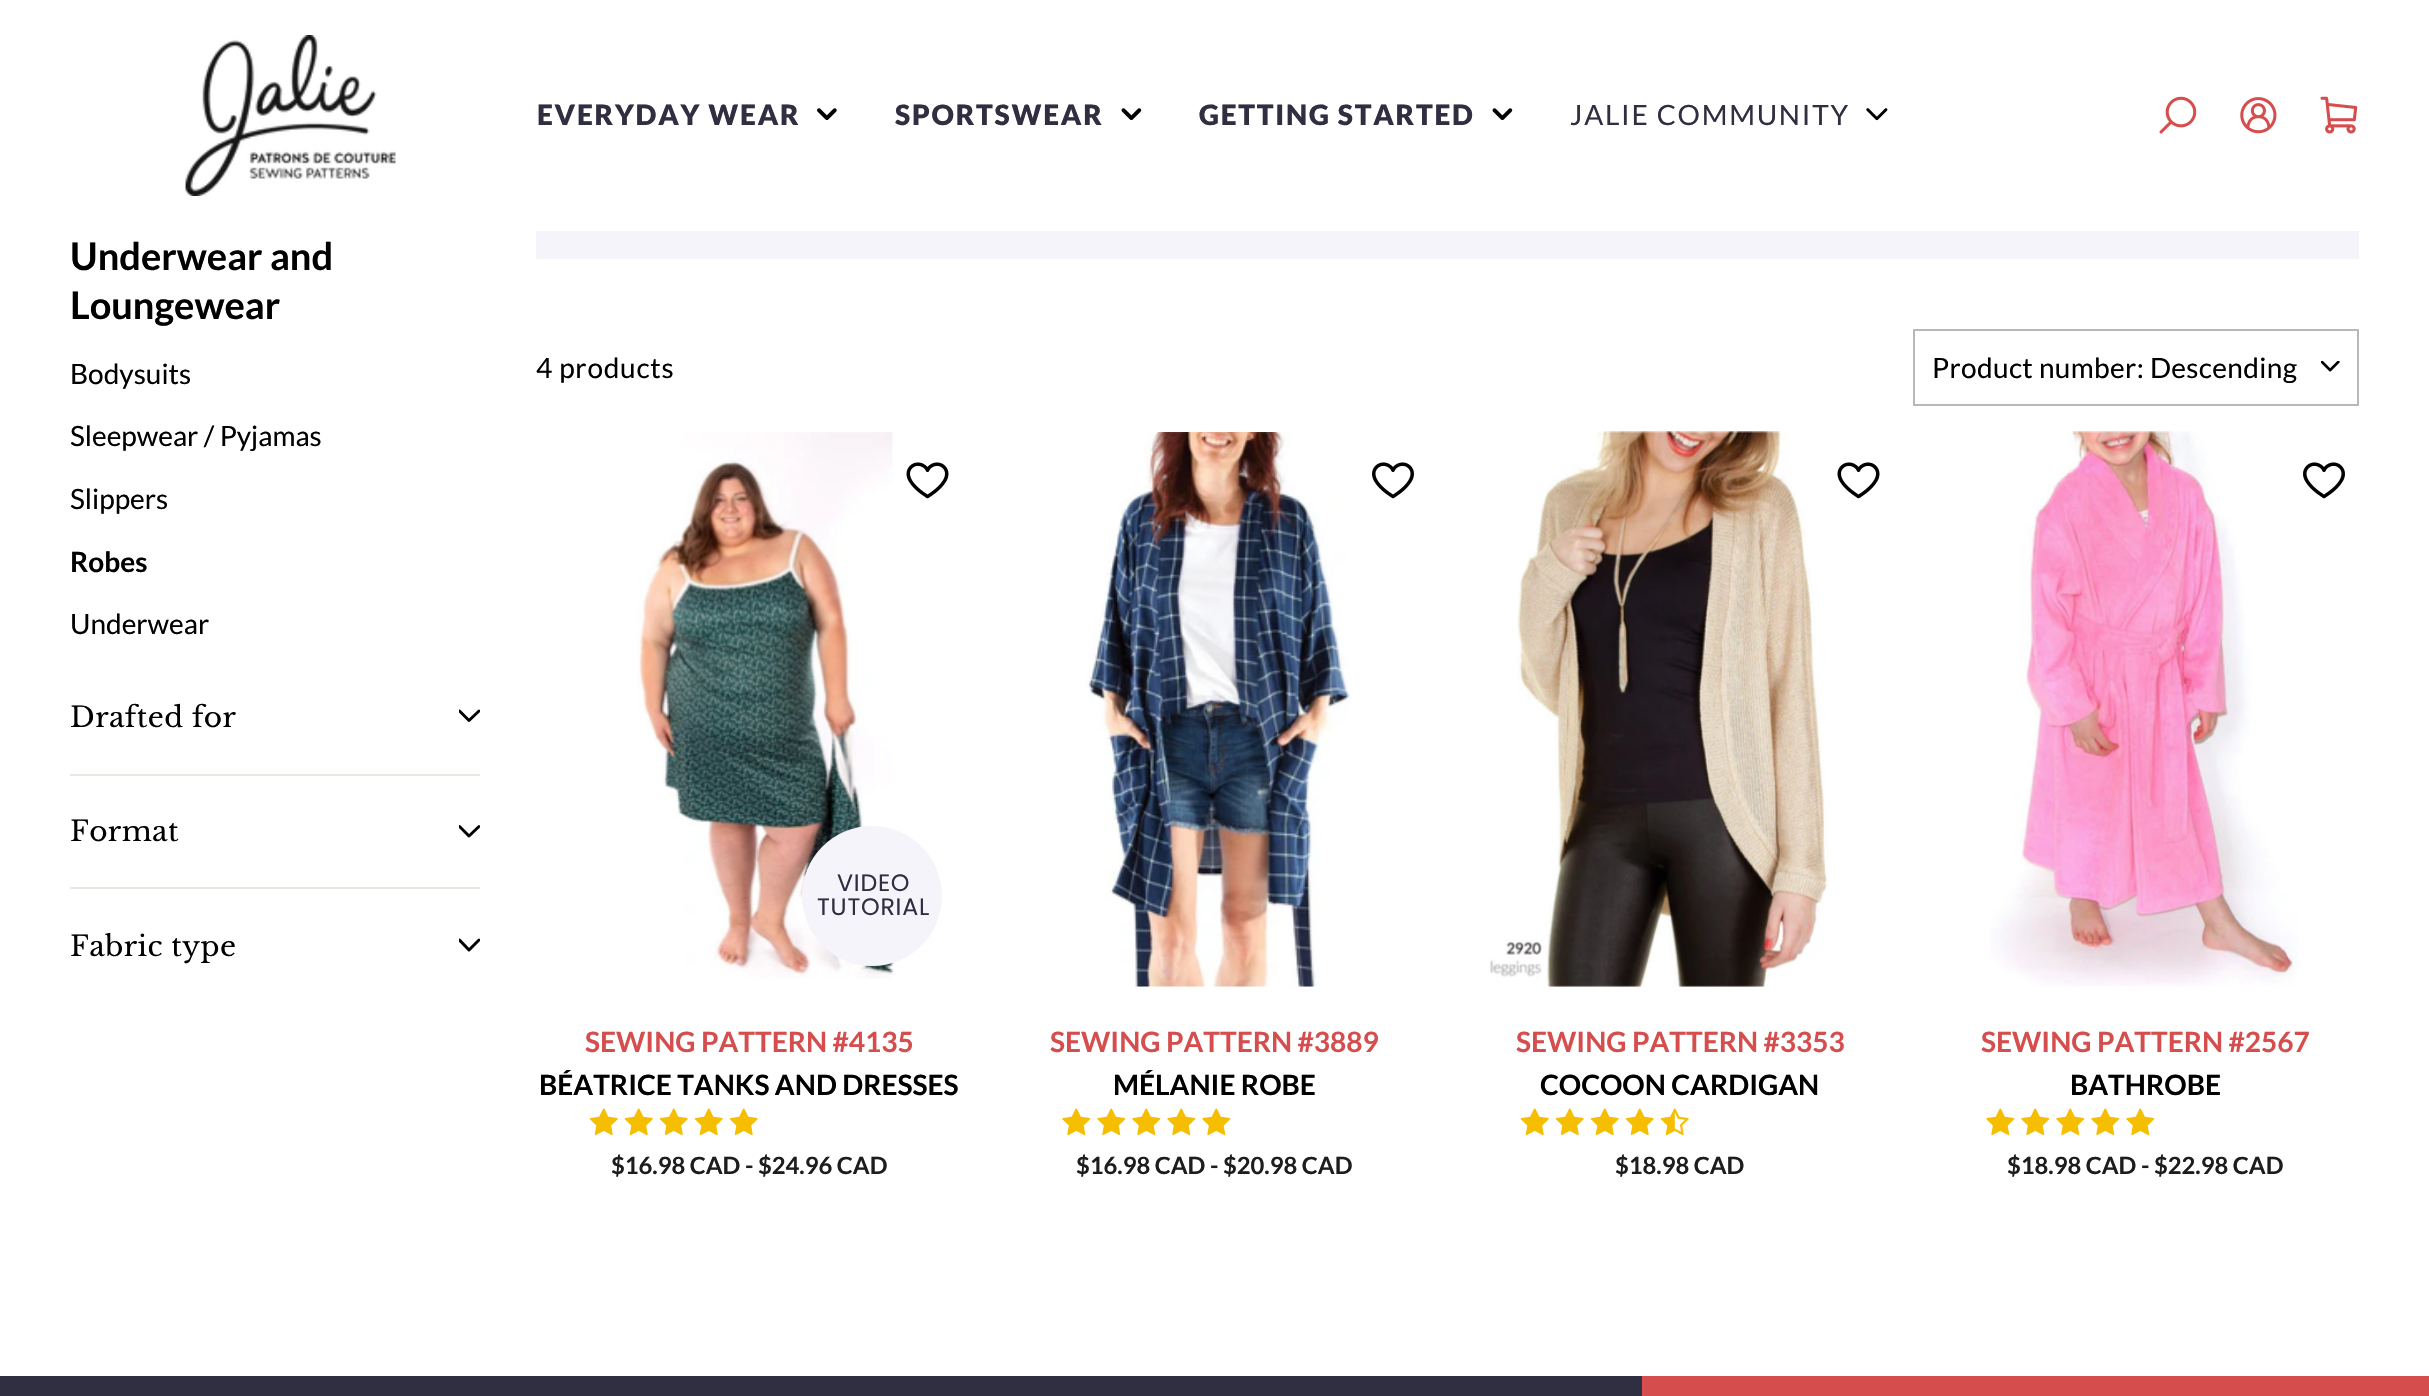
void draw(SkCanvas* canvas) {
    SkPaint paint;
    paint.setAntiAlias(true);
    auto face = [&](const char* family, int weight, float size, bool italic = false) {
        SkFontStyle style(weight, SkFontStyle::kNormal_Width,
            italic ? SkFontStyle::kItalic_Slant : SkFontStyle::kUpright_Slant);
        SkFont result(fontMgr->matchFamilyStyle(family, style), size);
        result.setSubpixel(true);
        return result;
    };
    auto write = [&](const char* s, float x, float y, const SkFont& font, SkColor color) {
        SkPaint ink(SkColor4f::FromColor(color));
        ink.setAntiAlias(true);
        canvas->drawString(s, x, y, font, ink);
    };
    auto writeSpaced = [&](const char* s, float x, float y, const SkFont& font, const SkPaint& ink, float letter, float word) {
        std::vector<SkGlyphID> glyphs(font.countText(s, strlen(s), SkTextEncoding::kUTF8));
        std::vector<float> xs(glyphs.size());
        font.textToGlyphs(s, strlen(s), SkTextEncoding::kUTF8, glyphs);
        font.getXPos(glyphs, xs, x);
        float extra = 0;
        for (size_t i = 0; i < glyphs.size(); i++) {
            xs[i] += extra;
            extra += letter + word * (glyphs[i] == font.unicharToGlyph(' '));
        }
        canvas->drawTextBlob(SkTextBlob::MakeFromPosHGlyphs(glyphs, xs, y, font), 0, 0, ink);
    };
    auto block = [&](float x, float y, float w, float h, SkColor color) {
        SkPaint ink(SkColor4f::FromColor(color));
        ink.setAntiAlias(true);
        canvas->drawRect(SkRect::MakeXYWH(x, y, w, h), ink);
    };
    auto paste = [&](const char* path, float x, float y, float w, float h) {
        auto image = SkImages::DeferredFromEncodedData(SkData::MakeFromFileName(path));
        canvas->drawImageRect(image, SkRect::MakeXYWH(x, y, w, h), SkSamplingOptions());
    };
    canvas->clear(SK_ColorWHITE);
    paste("pic1.png", 185, 35, 211, 161);
    auto kFont1 = face("Lato", 900, 28);
    paint.setColor(SkColorSetRGB(48, 46, 65));
    writeSpaced("EVERYDAY WEAR", 537, 125, kFont1, paint, 1.75f, 0);
    paste("pic2.png", 817, 108, 20, 13);
    writeSpaced("SPORTSWEAR", 895, 125, kFont1, paint, 1.75f, 0);
    paste("pic3.png", 1121, 108, 21, 13);
    writeSpaced("GETTING STARTED", 1199, 125, kFont1, paint, 1.75f, 0);
    paste("pic3.png", 1492, 108, 21, 13);
    auto kFont2 = face("Lato", 400, 28);
    writeSpaced("JALIE COMMUNITY", 1570, 125, kFont2, paint, 1.75f, 0);
    paste("pic4.png", 1866, 108, 22, 13);
    paste("pic5.png", 2159, 96, 38, 38);
    paste("pic6.png", 2240, 97, 37, 37);
    paste("pic7.png", 2320, 96, 38, 38);
    auto kFont3 = face("Lato", 700, 38);
    write("Underwear and", 70, 270, kFont3, SK_ColorBLACK);
    write("Loungewear", 70, 319, kFont3, SK_ColorBLACK);
    write("Bodysuits", 70, 384, kFont2, SK_ColorBLACK);
    write("Sleepwear / Pyjamas", 70, 446, kFont2, SK_ColorBLACK);
    write("Slippers", 70, 509, kFont2, SK_ColorBLACK);
    auto kFont4 = face("Lato", 700, 28);
    write("Robes", 70, 572, kFont4, SK_ColorBLACK);
    write("Underwear", 70, 634, kFont2, SK_ColorBLACK);
    auto kFont5 = face("Libre Baskerville", 400, 28);
    paint.setColor(SK_ColorBLACK);
    writeSpaced("Drafted for", 70, 727, kFont5, paint, 0.4f, 0);
    canvas->save();
    canvas->clipRect(SkRect::MakeXYWH(459, 705, 21, 21));
    paint.setStyle(SkPaint::kStroke_Style);
    paint.setStrokeWidth(3);
    paint.setStrokeCap(SkPaint::kRound_Cap);
    paint.setStrokeJoin(SkPaint::kRound_Join);
    canvas->drawPath(SkPathBuilder().moveTo(459.5f, 711).lineTo(469, 720.5f).lineTo(479, 711).detach(), paint);
    canvas->restore();
    block(70, 774, 410, 2, SkColorSetRGB(232, 232, 225));
    paint.setStyle(SkPaint::kFill_Style);
    writeSpaced("Format", 70, 841, kFont5, paint, 0.4f, 0);
    canvas->save();
    canvas->clipRect(SkRect::MakeXYWH(459, 821, 21, 21));
    paint.setStyle(SkPaint::kStroke_Style);
    canvas->drawPath(SkPathBuilder().moveTo(459.5f, 826.5f).lineTo(469, 836).lineTo(479, 826.5f).detach(), paint);
    canvas->restore();
    block(70, 887, 410, 2, SkColorSetRGB(232, 232, 225));
    paint.setStyle(SkPaint::kFill_Style);
    writeSpaced("Fabric type", 70, 956, kFont5, paint, 0.4f, 0);
    canvas->save();
    canvas->clipRect(SkRect::MakeXYWH(459, 935, 21, 21));
    paint.setStyle(SkPaint::kStroke_Style);
    canvas->drawPath(SkPathBuilder().moveTo(459.5f, 940).lineTo(469, 950).lineTo(479, 940).detach(), paint);
    canvas->restore();
    block(536, 231, 1823, 28, SkColorSetRGB(245, 244, 251));
    paint.setStyle(SkPaint::kFill_Style);
    writeSpaced("4 products", 536, 378, kFont2, paint, 0.75f, 0);
    paste("pic8.png", 2321, 361, 19, 11);
    paint.setStyle(SkPaint::kStroke_Style);
    paint.setStrokeWidth(2);
    paint.setStrokeCap(SkPaint::kButt_Cap);
    paint.setStrokeJoin(SkPaint::kMiter_Join);
    paint.setColor(SkColorSetRGB(184, 184, 184));
    canvas->drawRect(SkRect::MakeXYWH(1914, 330, 444, 75), paint);
    paint.setStyle(SkPaint::kFill_Style);
    paint.setColor(SK_ColorBLACK);
    writeSpaced("Product number: Descending", 1932, 378, kFont2, paint, 0.35f, 0);
    paste("pic9.png", 906, 462, 43, 37);
    paste("pic10.png", 636, 432, 258, 547);
    paint.setColor(SkColorSetRGB(245, 244, 251));
    canvas->drawCircle(872, 896, 70, paint);
    auto kFont6 = face("Poppins", 400, 23.75f);
    paint.setColor(SkColorSetRGB(48, 46, 65));
    writeSpaced("VIDEO", 837, 891, kFont6, paint, 0.75f, 0);
    writeSpaced("TUTORIAL", 817, 915, kFont6, paint, 0.75f, 0);
    write("SEWING PATTERN #4135", 585, 1052, kFont4, SkColorSetRGB(213, 77, 77));
    write("BÉATRICE TANKS AND DRESSES", 539, 1095, kFont4, SK_ColorBLACK);
    paste("pic11.png", 589, 1108, 29, 28);
    paste("pic11.png", 624, 1108, 29, 28);
    paste("pic11.png", 659, 1108, 29, 28);
    paste("pic11.png", 694, 1108, 29, 28);
    paste("pic11.png", 729, 1108, 29, 28);
    auto kFont7 = face("Lato", 700, 23.75f);
    write("$16.98 CAD - $24.96 CAD", 611, 1174, kFont7, SkColorSetRGB(28, 29, 29));
    paste("pic12.png", 1372, 462, 42, 37);
    paste("pic13.png", 1086, 432, 265, 555);
    write("SEWING PATTERN #3889", 1050, 1052, kFont4, SkColorSetRGB(213, 77, 77));
    write("MÉLANIE ROBE", 1113, 1095, kFont4, SK_ColorBLACK);
    paste("pic14.png", 1062, 1108, 29, 28);
    paste("pic14.png", 1097, 1108, 29, 28);
    paste("pic14.png", 1132, 1108, 29, 28);
    paste("pic14.png", 1167, 1108, 29, 28);
    paste("pic14.png", 1202, 1108, 29, 28);
    write("$16.98 CAD - $20.98 CAD", 1076, 1174, kFont7, SkColorSetRGB(28, 29, 29));
    paste("pic9.png", 1837, 462, 43, 37);
    paste("pic15.png", 1489, 431, 339, 556);
    write("SEWING PATTERN #3353", 1516, 1052, kFont4, SkColorSetRGB(213, 77, 77));
    write("COCOON CARDIGAN", 1540, 1095, kFont4, SK_ColorBLACK);
    paste("pic11.png", 1520, 1108, 29, 28);
    paste("pic11.png", 1555, 1108, 29, 28);
    paste("pic11.png", 1590, 1108, 29, 28);
    paste("pic11.png", 1625, 1108, 29, 28);
    paste("pic16.png", 1660, 1108, 29, 28);
    write("$18.98 CAD", 1615, 1174, kFont7, SkColorSetRGB(28, 29, 29));
    paste("pic12.png", 2303, 462, 42, 37);
    paste("pic17.png", 1990, 431, 308, 556);
    write("SEWING PATTERN #2567", 1981, 1052, kFont4, SkColorSetRGB(213, 77, 77));
    write("BATHROBE", 2070, 1095, kFont4, SK_ColorBLACK);
    paste("pic14.png", 1986, 1108, 29, 28);
    paste("pic14.png", 2021, 1108, 29, 28);
    paste("pic14.png", 2056, 1108, 29, 28);
    paste("pic14.png", 2091, 1108, 29, 28);
    paste("pic14.png", 2126, 1108, 29, 28);
    write("$18.98 CAD - $22.98 CAD", 2007, 1174, kFont7, SkColorSetRGB(28, 29, 29));
    block(0, 1376, 1642, 20, SkColorSetRGB(48, 46, 65));
    block(1642, 1376, 787, 20, SkColorSetRGB(213, 77, 77));
}
